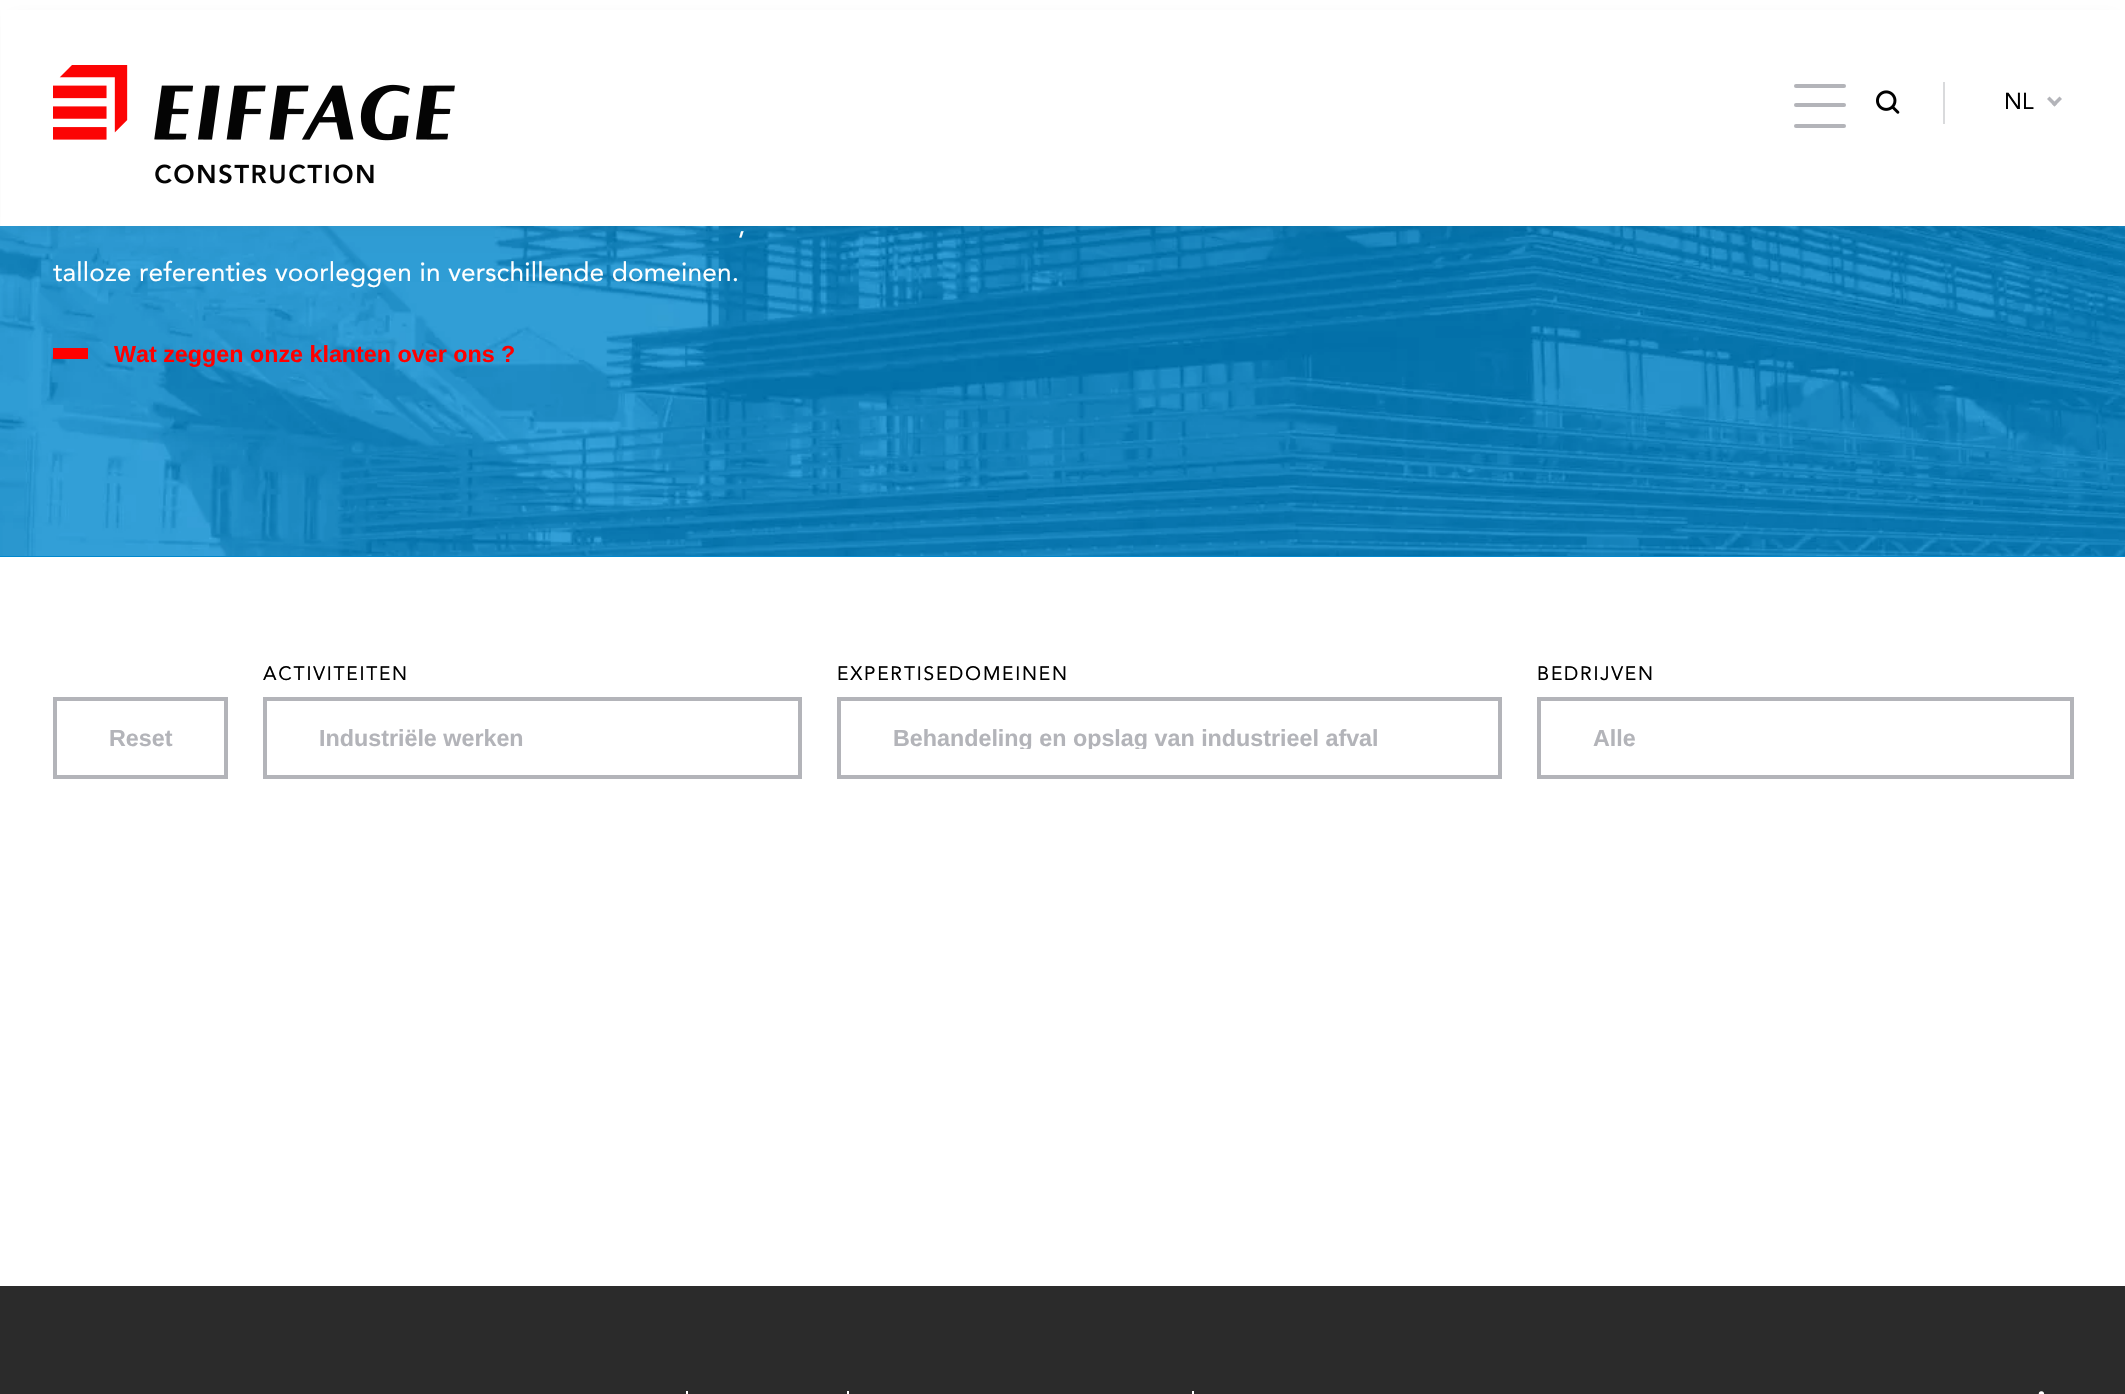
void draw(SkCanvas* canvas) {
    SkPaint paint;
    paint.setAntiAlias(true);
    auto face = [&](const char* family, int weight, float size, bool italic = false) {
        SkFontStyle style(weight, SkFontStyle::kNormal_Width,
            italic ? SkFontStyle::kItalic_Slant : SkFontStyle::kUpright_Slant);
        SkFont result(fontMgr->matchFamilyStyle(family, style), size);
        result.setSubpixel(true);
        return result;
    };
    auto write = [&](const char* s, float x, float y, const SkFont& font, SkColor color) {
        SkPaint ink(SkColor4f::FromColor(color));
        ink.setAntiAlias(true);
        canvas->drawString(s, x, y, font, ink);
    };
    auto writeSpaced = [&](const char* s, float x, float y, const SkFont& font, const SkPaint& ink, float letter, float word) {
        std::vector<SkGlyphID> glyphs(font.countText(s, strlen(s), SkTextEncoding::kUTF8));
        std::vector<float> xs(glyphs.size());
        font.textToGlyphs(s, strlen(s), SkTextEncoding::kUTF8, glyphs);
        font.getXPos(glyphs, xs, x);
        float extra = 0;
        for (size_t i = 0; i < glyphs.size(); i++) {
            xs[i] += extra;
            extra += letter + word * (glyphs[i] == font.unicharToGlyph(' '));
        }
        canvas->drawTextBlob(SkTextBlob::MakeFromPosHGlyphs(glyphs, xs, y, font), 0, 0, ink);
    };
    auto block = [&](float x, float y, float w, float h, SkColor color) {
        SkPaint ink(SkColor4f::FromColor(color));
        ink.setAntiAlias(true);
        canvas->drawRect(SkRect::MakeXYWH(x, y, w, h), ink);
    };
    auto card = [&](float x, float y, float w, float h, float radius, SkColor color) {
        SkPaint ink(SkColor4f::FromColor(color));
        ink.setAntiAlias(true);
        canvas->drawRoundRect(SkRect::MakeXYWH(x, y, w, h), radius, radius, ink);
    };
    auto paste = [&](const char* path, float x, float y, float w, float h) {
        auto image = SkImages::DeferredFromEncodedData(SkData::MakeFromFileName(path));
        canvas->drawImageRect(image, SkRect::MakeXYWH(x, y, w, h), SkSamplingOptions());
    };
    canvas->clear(SK_ColorWHITE);
    paste("pic3.png", 0, 226, 2125, 330);
    paint.setColor(SkColorSetARGB(13, 0, 0, 0));
    paint.setMaskFilter(SkMaskFilter::MakeBlur(kNormal_SkBlurStyle, 9));
    canvas->drawRect(SkRect::MakeXYWH(9, 18, 2109, 208), paint);
    paint.setMaskFilter(nullptr);
    block(1, 10, 2124, 216, SK_ColorWHITE);
    paste("pic1.png", 53, 65, 402, 119);
    card(1794, 84, 52, 4, 2, SkColorSetRGB(179, 180, 185));
    card(1794, 103, 52, 4, 2, SkColorSetRGB(179, 180, 185));
    card(1794, 124, 52, 4, 2, SkColorSetRGB(179, 180, 185));
    paste("pic2.png", 1876, 90, 24, 24);
    block(1943, 82, 2, 42, SkColorSetRGB(217, 218, 220));
    auto kFont1 = face("Avenir", 400, 23);
    write("NL", 2004, 109, kFont1, SK_ColorBLACK);
    paint.setColor(SkColorSetRGB(179, 180, 185));
    canvas->drawPath(SkPathBuilder().moveTo(2059.5f, 96.5f).lineTo(2062, 99).lineTo(2054.5f, 106.5f).lineTo(2052, 104).close().detach(), paint);
    canvas->drawPath(SkPathBuilder().moveTo(2049.5f, 96.5f).lineTo(2057, 104).lineTo(2054.5f, 106.5f).lineTo(2047, 99).close().detach(), paint);
    block(0, 556, 2125, 1, SkColorSetRGB(0, 136, 206));
    auto kFont2 = face("Avenir", 400, 26.25f);
    paint.setColor(SK_ColorWHITE);
    writeSpaced(",", 738, 234, kFont2, paint, 0.18f, 0);
    writeSpaced("talloze referenties voorleggen in verschillende domeinen.", 53, 281, kFont2, paint, 0.18f, 0);
    block(53, 348, 35, 11, SkColorSetRGB(255, 0, 0));
    auto kFont3 = face("Liberation Sans", 700, 23.3f);
    write("Wat zeggen onze klanten over ons ?", 114, 362, kFont3, SkColorSetRGB(255, 0, 0));
    paint.setStyle(SkPaint::kStroke_Style);
    paint.setStrokeWidth(4);
    paint.setColor(SkColorSetRGB(179, 180, 185));
    canvas->drawRect(SkRect::MakeXYWH(55, 699, 171, 78), paint);
    write("Reset", 109, 746, kFont3, SkColorSetRGB(179, 180, 185));
    auto kFont4 = face("Avenir", 400, 19.25f);
    paint.setStyle(SkPaint::kFill_Style);
    paint.setColor(SK_ColorBLACK);
    writeSpaced("ACTIVITEITEN", 263, 680, kFont4, paint, 1.75f, 0);
    paint.setStyle(SkPaint::kStroke_Style);
    paint.setColor(SkColorSetRGB(179, 180, 185));
    canvas->drawRect(SkRect::MakeXYWH(265, 699, 535, 78), paint);
    write("Industriële werken", 319, 746, kFont3, SkColorSetRGB(179, 180, 185));
    paint.setStyle(SkPaint::kFill_Style);
    paint.setColor(SK_ColorBLACK);
    writeSpaced("EXPERTISEDOMEINEN", 837, 680, kFont4, paint, 1.75f, 0);
    paint.setStyle(SkPaint::kStroke_Style);
    paint.setColor(SkColorSetRGB(179, 180, 185));
    canvas->drawRect(SkRect::MakeXYWH(839, 699, 661, 78), paint);
    canvas->save();
    canvas->clipRect(SkRect::MakeXYWH(893, 726, 553, 23));
    write("Behandeling en opslag van industrieel afval", 893, 746, kFont3, SkColorSetRGB(179, 180, 185));
    canvas->restore();
    paint.setStyle(SkPaint::kFill_Style);
    paint.setColor(SK_ColorBLACK);
    writeSpaced("BEDRIJVEN", 1537, 680, kFont4, paint, 1.75f, 0);
    paint.setStyle(SkPaint::kStroke_Style);
    paint.setColor(SkColorSetRGB(179, 180, 185));
    canvas->drawRect(SkRect::MakeXYWH(1539, 699, 533, 78), paint);
    write("Alle", 1593, 746, kFont3, SkColorSetRGB(179, 180, 185));
    block(0, 1286, 2125, 108, SkColorSetRGB(43, 43, 43));
    block(686, 1391, 2, 3, SK_ColorWHITE);
    block(847, 1391, 2, 3, SK_ColorWHITE);
    block(1192, 1391, 2, 3, SK_ColorWHITE);
    paste("pic4.png", 2038, 1391, 7, 3);
}
